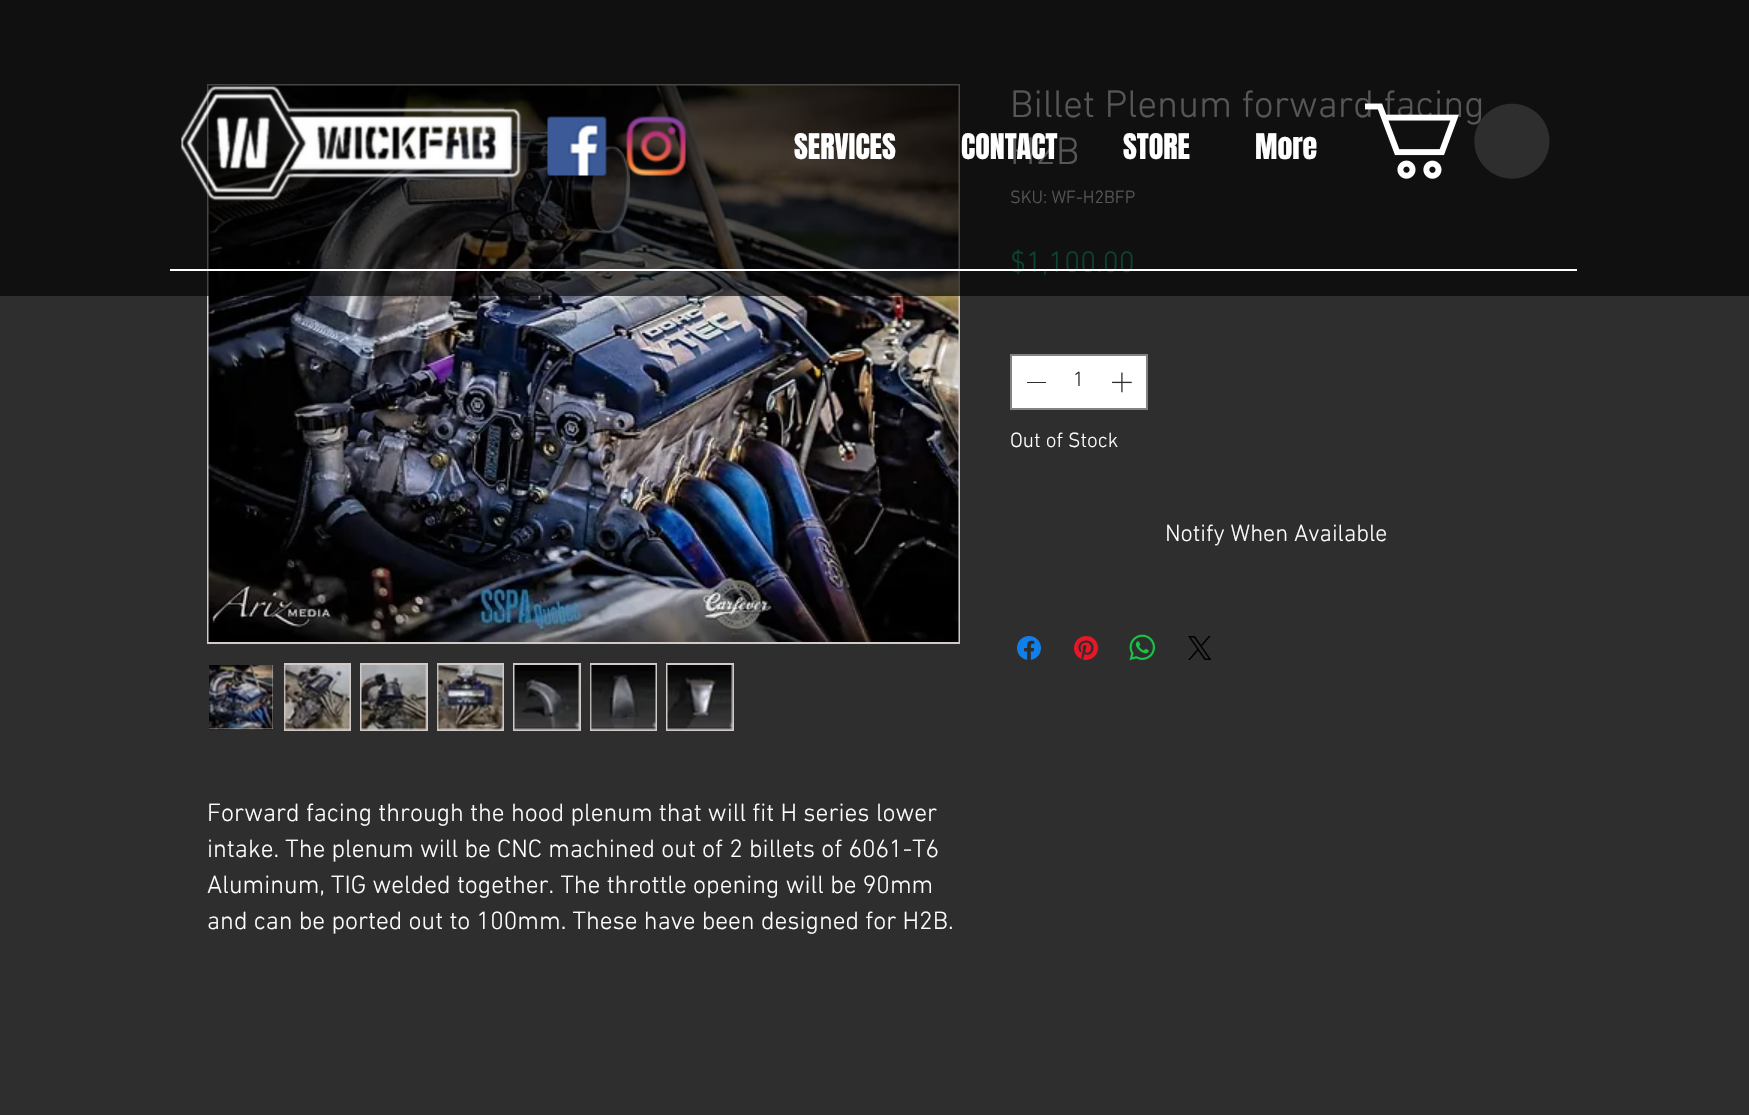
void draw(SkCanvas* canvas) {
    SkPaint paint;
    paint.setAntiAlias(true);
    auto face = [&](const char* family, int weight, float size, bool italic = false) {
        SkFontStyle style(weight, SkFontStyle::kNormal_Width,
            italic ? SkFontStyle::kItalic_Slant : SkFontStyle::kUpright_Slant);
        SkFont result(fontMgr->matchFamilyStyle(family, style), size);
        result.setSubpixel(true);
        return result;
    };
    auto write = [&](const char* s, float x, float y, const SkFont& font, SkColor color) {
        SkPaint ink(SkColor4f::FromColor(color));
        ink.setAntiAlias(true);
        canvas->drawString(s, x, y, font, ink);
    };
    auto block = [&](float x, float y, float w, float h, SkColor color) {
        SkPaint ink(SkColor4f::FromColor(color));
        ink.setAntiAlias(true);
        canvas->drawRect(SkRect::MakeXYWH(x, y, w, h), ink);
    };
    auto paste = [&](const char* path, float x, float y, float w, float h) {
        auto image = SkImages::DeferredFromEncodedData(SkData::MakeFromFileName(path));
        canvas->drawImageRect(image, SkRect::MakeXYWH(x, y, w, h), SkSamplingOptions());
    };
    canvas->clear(SkColorSetRGB(47, 46, 46));
    auto kFont1 = face("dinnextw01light", 300, 39);
    write("Billet Plenum forward facing", 1010, 117, kFont1, SK_ColorWHITE);
    write("H2B", 1010, 164, kFont1, SK_ColorWHITE);
    auto kFont2 = face("dinnextw01light", 300, 18);
    write("SKU: WF-H2BFP", 1010, 203, kFont2, SK_ColorWHITE);
    auto kFont3 = face("dinnextw01light", 300, 30);
    write("$1,100.00", 1010, 272, kFont3, SkColorSetRGB(32, 206, 136));
    paint.setColor(SK_ColorWHITE);
    canvas->drawRect(SkRect::MakeXYWH(1011, 355, 136, 54), paint);
    paint.setStyle(SkPaint::kStroke_Style);
    paint.setStrokeWidth(2);
    paint.setColor(SkColorSetRGB(130, 130, 130));
    canvas->drawRect(SkRect::MakeXYWH(1011, 355, 136, 54), paint);
    block(1027, 382, 19, 1, SkColorSetRGB(47, 46, 46));
    auto kFont4 = face("dinnextw01light", 300, 21);
    write("1", 1073, 386, kFont4, SkColorSetRGB(47, 46, 46));
    paste("pic1.png", 1112, 372, 20, 21);
    write("Out of Stock", 1010, 447, kFont4, SK_ColorWHITE);
    auto kFont5 = face("dinnextw01light", 300, 24);
    write("Notify When Available", 1165, 541, kFont5, SK_ColorWHITE);
    paste("pic2.png", 1017, 636, 24, 24);
    paste("pic3.png", 1074, 636, 24, 24);
    paste("pic4.png", 1129, 634, 26, 27);
    paste("pic5.png", 1188, 636, 24, 24);
    paint.setColor(SkColorSetRGB(209, 202, 201));
    canvas->drawRect(SkRect::MakeXYWH(208, 85, 751, 558), paint);
    paste("pic6.png", 208, 85, 751, 557);
    block(209, 665, 64, 64, SkColorSetRGB(209, 202, 201));
    paste("pic7.png", 209, 665, 65, 65);
    block(284, 663, 67, 68, SkColorSetRGB(209, 202, 201));
    paste("pic8.png", 284, 665, 66, 65);
    block(360, 663, 68, 68, SkColorSetRGB(209, 202, 201));
    paste("pic9.png", 361, 665, 66, 65);
    block(437, 663, 67, 68, SkColorSetRGB(209, 202, 201));
    paste("pic10.png", 437, 665, 66, 65);
    block(513, 663, 68, 68, SkColorSetRGB(209, 202, 201));
    paste("pic11.png", 514, 665, 66, 65);
    block(590, 663, 67, 68, SkColorSetRGB(209, 202, 201));
    paste("pic12.png", 590, 665, 66, 65);
    block(666, 663, 68, 68, SkColorSetRGB(209, 202, 201));
    paste("pic13.png", 667, 665, 66, 65);
    auto kFont6 = face("dinnextw01light", 300, 25.5f);
    write("Forward facing through the hood plenum that will fit H series lower", 207, 821, kFont6, SK_ColorWHITE);
    write("intake. The plenum will be CNC machined out of 2 billets of 6061-T6", 207, 857, kFont6, SK_ColorWHITE);
    write("Aluminum, TIG welded together. The throttle opening will be 90mm", 207, 893, kFont6, SK_ColorWHITE);
    write("and can be ported out to 100mm. These have been designed for H2B.", 207, 929, kFont6, SK_ColorWHITE);
    block(0, 0, 1749, 296, SkColorSetARGB(168, 0, 0, 0));
    paste("pic14.png", 181, 86, 341, 115);
    paste("pic15.png", 547, 116, 60, 60);
    paste("pic16.png", 626, 116, 60, 60);
    auto kFont7 = face("Anton", 400, 30);
    write("SERVICES", 794, 159, kFont7, SK_ColorWHITE);
    write("CONTACT", 961, 159, kFont7, SK_ColorWHITE);
    write("STORE", 1123, 159, kFont7, SK_ColorWHITE);
    write("More", 1255, 159, kFont7, SK_ColorWHITE);
    paste("pic17.png", 1365, 103, 185, 76);
    block(170, 269, 1407, 2, SK_ColorWHITE);
}
